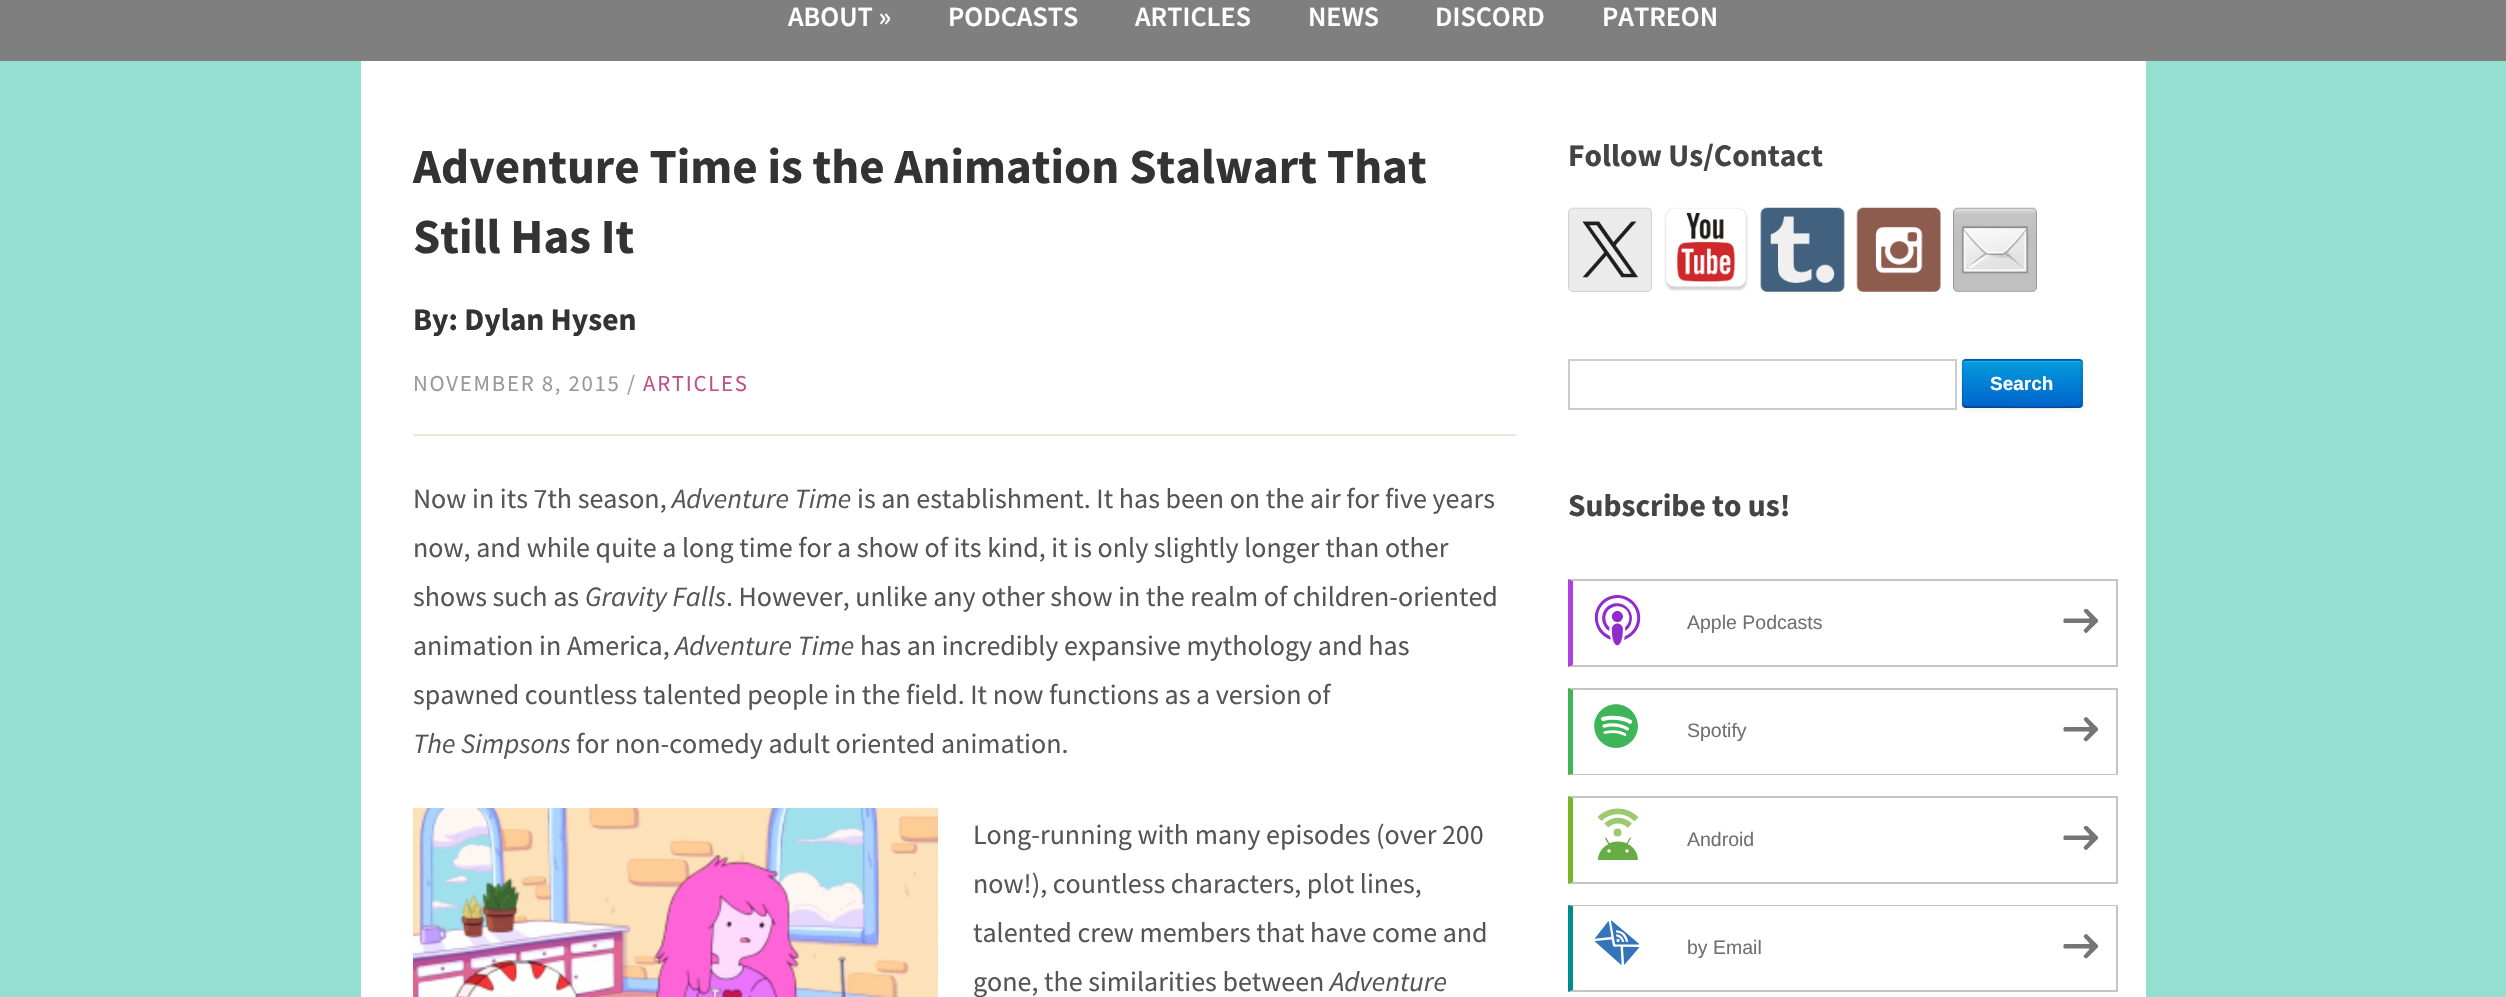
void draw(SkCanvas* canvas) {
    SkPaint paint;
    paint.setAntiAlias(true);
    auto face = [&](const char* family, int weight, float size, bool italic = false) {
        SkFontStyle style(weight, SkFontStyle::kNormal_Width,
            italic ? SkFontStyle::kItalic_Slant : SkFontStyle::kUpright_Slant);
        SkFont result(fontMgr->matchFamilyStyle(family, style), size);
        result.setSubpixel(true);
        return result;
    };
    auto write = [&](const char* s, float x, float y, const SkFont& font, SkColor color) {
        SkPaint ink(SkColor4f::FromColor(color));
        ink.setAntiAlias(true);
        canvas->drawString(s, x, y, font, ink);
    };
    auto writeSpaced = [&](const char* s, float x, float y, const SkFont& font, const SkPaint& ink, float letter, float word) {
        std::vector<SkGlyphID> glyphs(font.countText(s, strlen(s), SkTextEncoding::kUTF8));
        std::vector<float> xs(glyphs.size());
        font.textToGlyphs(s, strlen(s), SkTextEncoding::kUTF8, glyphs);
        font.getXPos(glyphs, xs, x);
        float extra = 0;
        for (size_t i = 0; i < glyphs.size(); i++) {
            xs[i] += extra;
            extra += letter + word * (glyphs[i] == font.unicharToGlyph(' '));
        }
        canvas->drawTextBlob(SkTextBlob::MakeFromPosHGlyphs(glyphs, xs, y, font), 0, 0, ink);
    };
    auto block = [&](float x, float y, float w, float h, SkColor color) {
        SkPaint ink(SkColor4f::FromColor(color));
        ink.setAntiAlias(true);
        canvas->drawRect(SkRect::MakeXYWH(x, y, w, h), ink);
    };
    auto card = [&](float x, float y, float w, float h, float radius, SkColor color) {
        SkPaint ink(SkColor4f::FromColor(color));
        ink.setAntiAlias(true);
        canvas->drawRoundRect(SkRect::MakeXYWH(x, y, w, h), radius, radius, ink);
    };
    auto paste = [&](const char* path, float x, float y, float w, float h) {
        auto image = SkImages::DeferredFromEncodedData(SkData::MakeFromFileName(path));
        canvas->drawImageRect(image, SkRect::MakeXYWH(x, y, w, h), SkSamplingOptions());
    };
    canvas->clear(SkColorSetRGB(149, 223, 208));
    block(0, 0, 2506, 61, SkColorSetRGB(127, 127, 127));
    auto kFont1 = face("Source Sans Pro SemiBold", 600, 28);
    write("ABOUT »", 788, 26, kFont1, SK_ColorWHITE);
    write("PODCASTS", 948, 26, kFont1, SK_ColorWHITE);
    write("ARTICLES", 1135, 26, kFont1, SK_ColorWHITE);
    write("NEWS", 1308, 26, kFont1, SK_ColorWHITE);
    write("DISCORD", 1435, 26, kFont1, SK_ColorWHITE);
    write("PATREON", 1602, 26, kFont1, SK_ColorWHITE);
    block(361, 61, 1785, 936, SK_ColorWHITE);
    auto kFont2 = face("Source Sans Pro", 700, 49);
    write("Adventure Time is the Animation Stalwart That", 413, 183, kFont2, SkColorSetRGB(51, 51, 51));
    write("Still Has It", 413, 253, kFont2, SkColorSetRGB(51, 51, 51));
    auto kFont3 = face("Source Sans Pro", 700, 31.5f);
    write("By: Dylan Hysen", 413, 330, kFont3, SkColorSetRGB(51, 51, 51));
    auto kFont4 = face("Source Sans Pro", 400, 22.75f);
    paint.setColor(SkColorSetRGB(153, 153, 153));
    writeSpaced("NOVEMBER 8, 2015 /", 413, 391, kFont4, paint, 1.75f, 0);
    paint.setColor(SkColorSetRGB(191, 80, 133));
    writeSpaced("ARTICLES", 643, 391, kFont4, paint, 1.75f, 0);
    block(413, 434, 1103, 2, SkColorSetRGB(240, 229, 216));
    auto kFont5 = face("Source Sans Pro", 400, 28);
    write("Now in its 7th season,", 413, 508, kFont5, SkColorSetRGB(85, 85, 85));
    auto kFont6 = face("Source Sans Pro", 400, 28, true);
    write("Adventure Time", 672, 508, kFont6, SkColorSetRGB(85, 85, 85));
    write("is an establishment. It has been on the air for five years", 857, 508, kFont5, SkColorSetRGB(85, 85, 85));
    write("now, and while quite a long time for a show of its kind, it is only slightly longer than other", 413, 557, kFont5, SkColorSetRGB(85, 85, 85));
    write("shows such as", 413, 606, kFont5, SkColorSetRGB(85, 85, 85));
    write("Gravity Falls", 585, 606, kFont6, SkColorSetRGB(85, 85, 85));
    write(". However, unlike any other show in the realm of children-oriented", 726, 606, kFont5, SkColorSetRGB(85, 85, 85));
    write("animation in America,", 413, 655, kFont5, SkColorSetRGB(85, 85, 85));
    write("Adventure Time", 675, 655, kFont6, SkColorSetRGB(85, 85, 85));
    write("has an incredibly expansive mythology and has", 860, 655, kFont5, SkColorSetRGB(85, 85, 85));
    write("spawned countless talented people in the field. It now functions as a version of", 413, 704, kFont5, SkColorSetRGB(85, 85, 85));
    write("The Simpsons", 413, 753, kFont6, SkColorSetRGB(85, 85, 85));
    write("for non-comedy adult oriented animation.", 576, 753, kFont5, SkColorSetRGB(85, 85, 85));
    paste("pic1.png", 413, 808, 525, 189);
    write("Long-running with many episodes (over 200", 973, 844, kFont5, SkColorSetRGB(85, 85, 85));
    write("now!), countless characters, plot lines,", 973, 893, kFont5, SkColorSetRGB(85, 85, 85));
    write("talented crew members that have come and", 973, 942, kFont5, SkColorSetRGB(85, 85, 85));
    write("gone, the similarities between", 973, 991, kFont5, SkColorSetRGB(85, 85, 85));
    write("Adventure", 1330, 991, kFont6, SkColorSetRGB(85, 85, 85));
    write("Follow Us/Contact", 1568, 166, kFont3, SkColorSetRGB(68, 68, 68));
    paste("pic2.png", 1568, 207, 84, 85);
    paste("pic3.png", 1664, 207, 84, 85);
    paste("pic4.png", 1760, 207, 85, 85);
    paste("pic5.png", 1856, 207, 85, 85);
    paste("pic6.png", 1953, 207, 84, 85);
    paint.setStyle(SkPaint::kStroke_Style);
    paint.setStrokeWidth(2);
    paint.setColor(SkColorSetRGB(204, 204, 204));
    canvas->drawRect(SkRect::MakeXYWH(1569, 360, 387, 49), paint);
    paint.setStyle(SkPaint::kFill_Style);
    paint.setColor(SkColorSetARGB(13, 0, 0, 0));
    paint.setMaskFilter(SkMaskFilter::MakeBlur(kNormal_SkBlurStyle, 2));
    canvas->drawRoundRect(SkRect::MakeXYWH(1962, 361, 121, 49), 4, 4, paint);
    paint.setMaskFilter(nullptr);
    card(1962, 359, 121, 49, 4, SkColorSetRGB(0, 100, 205));
    canvas->save();
    canvas->clipPath(SkPathBuilder().moveTo(1966, 359).lineTo(2079, 359).cubicTo(2081, 359, 2083, 361, 2083, 363).lineTo(2083, 404).cubicTo(2083, 406, 2081, 408, 2079, 408).lineTo(1966, 408).cubicTo(1964, 408, 1962, 406, 1962, 404).lineTo(1962, 363).cubicTo(1962, 361, 1964, 359, 1966, 359).close().detach(), true);
    {
        const SkColor colors[] = {SkColorSetRGB(4, 156, 219), SkColorSetRGB(0, 100, 205)};
        const float stops[] = {0, 1};
        const SkPoint ends[] = {{2022, 361}, {2022, 406}};
        paint.setShader(SkGradientShader::MakeLinear(ends, colors, stops, 2, SkTileMode::kClamp));
        paint.setAlpha(255);
    }
    canvas->drawRect(SkRect::MakeXYWH(1962, 361, 121, 45), paint);
    canvas->restore();
    paint.setShader(nullptr);
    paint.setColor(SkColorSetRGB(54, 175, 226));
    canvas->drawPath(SkPathBuilder().moveTo(1965, 362).lineTo(2079, 362).cubicTo(2080, 362, 2081, 363, 2081, 364).cubicTo(2081, 363, 2081, 362, 2080, 361).lineTo(1965, 361).cubicTo(1964, 362, 1964, 363, 1964, 364).cubicTo(1964, 363, 1964, 362, 1965, 362).close().detach(), paint);
    paint.setStyle(SkPaint::kStroke_Style);
    paint.setStrokeWidth(1.8f);
    paint.setColor(SkColorSetARGB(64, 0, 0, 0));
    canvas->drawPath(SkPathBuilder().moveTo(2081, 406).lineTo(2080.5f, 406.5f).cubicTo(2078.5f, 408, 1994, 407, 1984, 407).lineTo(1965, 407).lineTo(1963.5f, 406).detach(), paint);
    paint.setColor(SkColorSetARGB(26, 0, 0, 0));
    canvas->drawPath(SkPathBuilder().moveTo(1963.5f, 406).lineTo(1962.5f, 404).lineTo(1962.5f, 362).lineTo(1963.5f, 360.5f).lineTo(1965, 359.5f).lineTo(2079, 359.5f).lineTo(2081, 360.5f).lineTo(2081.5f, 362).lineTo(2081.5f, 404).lineTo(2081, 406).detach(), paint);
    auto kFont7 = face("Liberation Sans", 700, 19);
    write("Search", 1990, 390, kFont7, SK_ColorWHITE);
    write("Subscribe to us!", 1568, 516, kFont3, SkColorSetRGB(68, 68, 68));
    paint.setStyle(SkPaint::kFill_Style);
    paint.setColor(SkColorSetRGB(196, 196, 196));
    canvas->drawPath(SkPathBuilder().moveTo(1568, 579).lineTo(2118, 579).lineTo(2116, 581).lineTo(1573, 581).close().detach(), paint);
    block(2116, 579, 2, 88, SkColorSetRGB(196, 196, 196));
    canvas->drawPath(SkPathBuilder().moveTo(2118, 667).lineTo(1568, 667).lineTo(1573, 665).lineTo(2116, 665).close().detach(), paint);
    paint.setColor(SkColorSetRGB(171, 66, 223));
    canvas->drawPath(SkPathBuilder().moveTo(1568, 667).lineTo(1568, 579).lineTo(1573, 581).lineTo(1573, 665).close().detach(), paint);
    paste("pic7.png", 1594, 595, 47, 51);
    auto kFont8 = face("Liberation Sans", 400, 19.5f);
    write("Apple Podcasts", 1687, 629, kFont8, SkColorSetRGB(112, 112, 112));
    paste("pic8.png", 2063, 609, 35, 24);
    paint.setColor(SkColorSetRGB(196, 196, 196));
    canvas->drawPath(SkPathBuilder().moveTo(1568, 688).lineTo(2118, 688).lineTo(2116, 690).lineTo(1573, 690).close().detach(), paint);
    block(2116, 688, 2, 87, SkColorSetRGB(196, 196, 196));
    canvas->drawPath(SkPathBuilder().moveTo(2118, 775).lineTo(1568, 775).lineTo(1573, 774).lineTo(2116, 774).close().detach(), paint);
    paint.setColor(SkColorSetRGB(62, 181, 89));
    canvas->drawPath(SkPathBuilder().moveTo(1568, 775).lineTo(1568, 688).lineTo(1573, 690).lineTo(1573, 774).close().detach(), paint);
    paste("pic9.png", 1594, 704, 44, 44);
    write("Spotify", 1687, 737, kFont8, SkColorSetRGB(112, 112, 112));
    paste("pic10.png", 2063, 717, 35, 25);
    paint.setColor(SkColorSetRGB(196, 196, 196));
    canvas->drawPath(SkPathBuilder().moveTo(1568, 796).lineTo(2118, 796).lineTo(2116, 798).lineTo(1573, 798).close().detach(), paint);
    block(2116, 796, 2, 88, SkColorSetRGB(196, 196, 196));
    canvas->drawPath(SkPathBuilder().moveTo(2118, 884).lineTo(1568, 884).lineTo(1573, 882).lineTo(2116, 882).close().detach(), paint);
    paint.setColor(SkColorSetRGB(117, 186, 38));
    canvas->drawPath(SkPathBuilder().moveTo(1568, 884).lineTo(1568, 796).lineTo(1573, 798).lineTo(1573, 882).close().detach(), paint);
    paste("pic11.png", 1597, 808, 42, 52);
    write("Android", 1687, 846, kFont8, SkColorSetRGB(112, 112, 112));
    paste("pic12.png", 2063, 826, 35, 24);
    paint.setColor(SkColorSetRGB(196, 196, 196));
    canvas->drawPath(SkPathBuilder().moveTo(1568, 905).lineTo(2118, 905).lineTo(2116, 906).lineTo(1573, 906).close().detach(), paint);
    block(2116, 905, 2, 87, SkColorSetRGB(196, 196, 196));
    canvas->drawPath(SkPathBuilder().moveTo(2118, 992).lineTo(1568, 992).lineTo(1573, 990).lineTo(2116, 990).close().detach(), paint);
    paint.setColor(SkColorSetRGB(1, 140, 139));
    canvas->drawPath(SkPathBuilder().moveTo(1568, 992).lineTo(1568, 905).lineTo(1573, 906).lineTo(1573, 990).close().detach(), paint);
    paste("pic13.png", 1594, 920, 46, 45);
    write("by Email", 1687, 954, kFont8, SkColorSetRGB(112, 112, 112));
    paste("pic10.png", 2063, 934, 35, 25);
}
